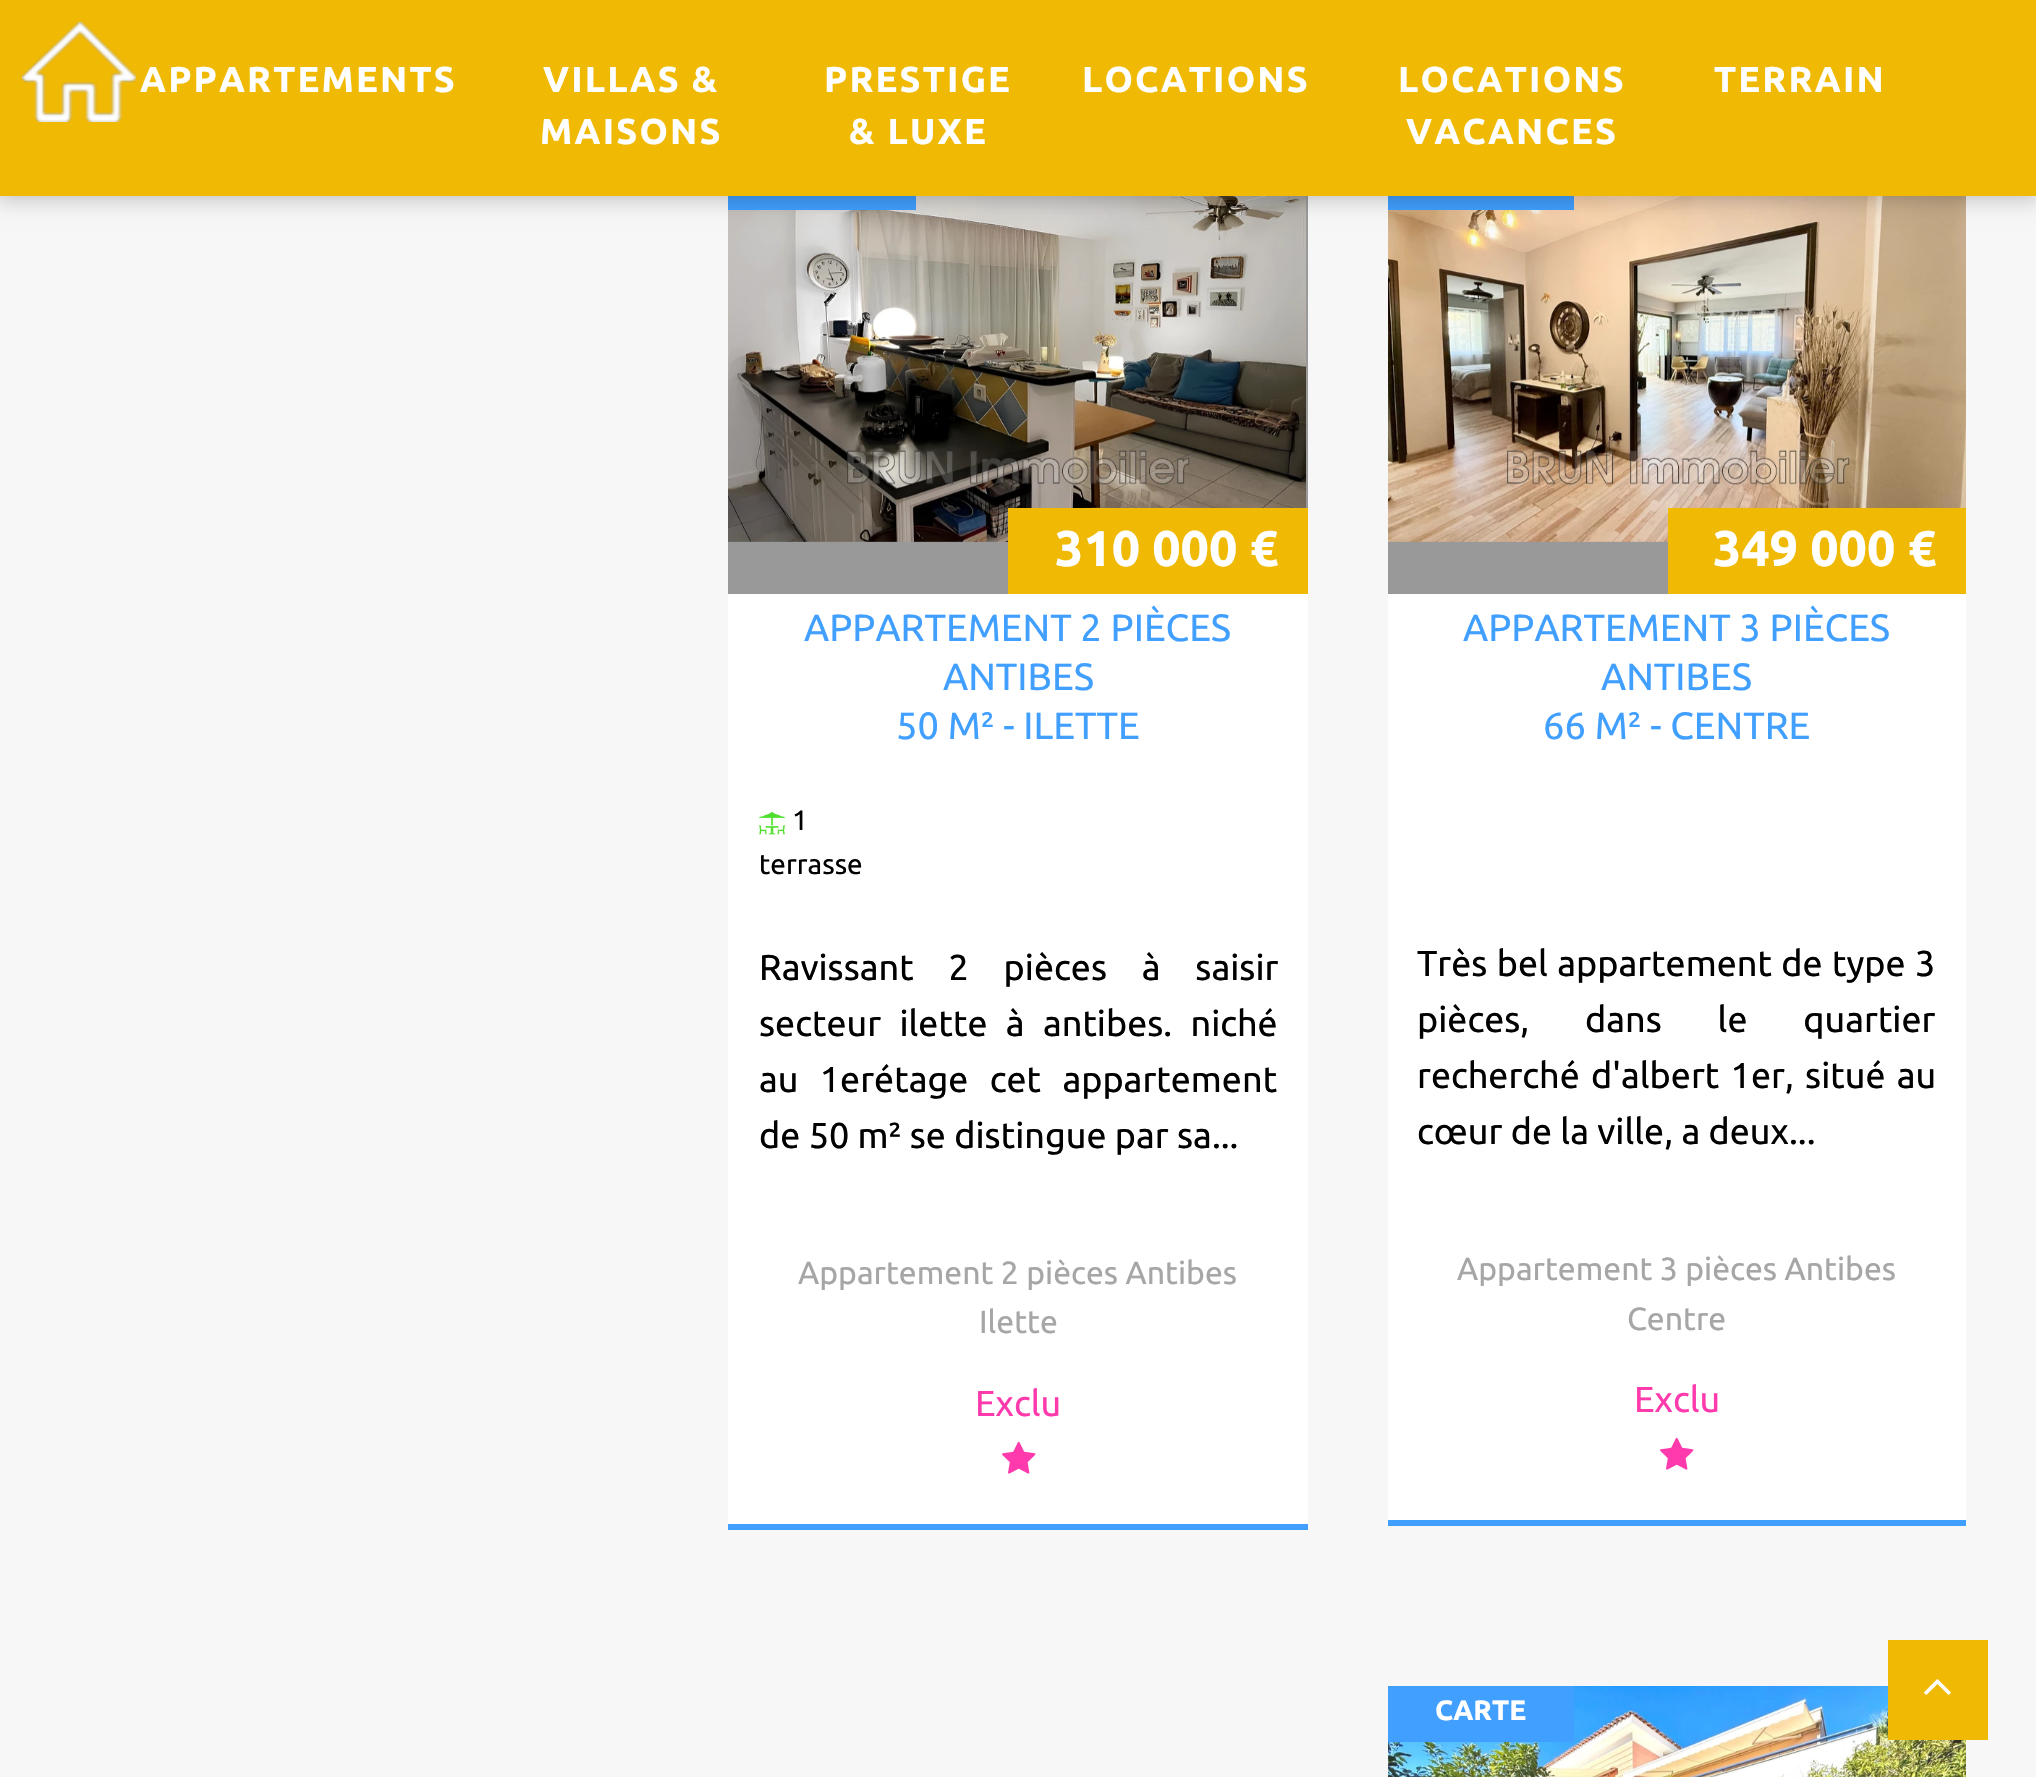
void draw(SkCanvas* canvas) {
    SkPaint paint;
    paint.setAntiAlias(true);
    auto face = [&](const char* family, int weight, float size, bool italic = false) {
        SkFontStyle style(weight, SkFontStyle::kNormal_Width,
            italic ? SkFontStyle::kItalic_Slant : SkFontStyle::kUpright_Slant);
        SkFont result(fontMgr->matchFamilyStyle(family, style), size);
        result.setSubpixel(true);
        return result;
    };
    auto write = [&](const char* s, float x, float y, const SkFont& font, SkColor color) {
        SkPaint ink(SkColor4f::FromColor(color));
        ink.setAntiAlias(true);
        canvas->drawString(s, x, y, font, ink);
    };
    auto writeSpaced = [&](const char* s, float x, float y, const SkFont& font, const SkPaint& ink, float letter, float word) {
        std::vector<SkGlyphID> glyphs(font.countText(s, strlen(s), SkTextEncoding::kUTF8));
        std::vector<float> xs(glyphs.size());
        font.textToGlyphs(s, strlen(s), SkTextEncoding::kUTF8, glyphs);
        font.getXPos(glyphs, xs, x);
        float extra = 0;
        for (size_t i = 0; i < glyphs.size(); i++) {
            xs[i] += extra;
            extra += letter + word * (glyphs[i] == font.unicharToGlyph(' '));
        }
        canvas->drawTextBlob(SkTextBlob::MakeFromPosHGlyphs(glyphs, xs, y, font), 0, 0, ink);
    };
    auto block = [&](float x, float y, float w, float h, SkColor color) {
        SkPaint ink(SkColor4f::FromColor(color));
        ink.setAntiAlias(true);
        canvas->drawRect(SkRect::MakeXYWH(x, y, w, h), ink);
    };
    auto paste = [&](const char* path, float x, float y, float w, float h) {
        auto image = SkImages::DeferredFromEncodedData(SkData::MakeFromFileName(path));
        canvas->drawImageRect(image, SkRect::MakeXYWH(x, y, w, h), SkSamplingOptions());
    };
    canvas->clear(SkColorSetRGB(247, 247, 247));
    block(728, 196, 580, 398, SkColorSetRGB(153, 153, 153));
    paste("pic2.png", 728, 196, 578, 346);
    block(728, 196, 188, 14, SkColorSetRGB(64, 159, 255));
    block(1388, 541, 280, 53, SkColorSetRGB(153, 153, 153));
    paste("pic5.png", 1388, 196, 578, 346);
    block(1388, 196, 186, 14, SkColorSetRGB(64, 159, 255));
    paint.setColor(SkColorSetARGB(56, 0, 0, 0));
    paint.setMaskFilter(SkMaskFilter::MakeBlur(kNormal_SkBlurStyle, 10));
    canvas->drawRect(SkRect::MakeXYWH(-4, -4, 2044, 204), paint);
    paint.setMaskFilter(nullptr);
    block(0, 0, 2036, 196, SkColorSetRGB(240, 185, 4));
    paste("pic1.png", 22, 22, 114, 100);
    auto kFont1 = face("Ubuntu", 700, 36);
    paint.setColor(SK_ColorWHITE);
    writeSpaced("APPARTEMENTS", 140, 92, kFont1, paint, 2.2f, 0);
    writeSpaced("VILLAS &", 543, 92, kFont1, paint, 2.2f, 0);
    writeSpaced("MAISONS", 540, 144, kFont1, paint, 2.2f, 0);
    writeSpaced("PRESTIGE", 824, 92, kFont1, paint, 2.2f, 0);
    writeSpaced("& LUXE", 849, 144, kFont1, paint, 2.2f, 0);
    writeSpaced("LOCATIONS", 1082, 92, kFont1, paint, 2.2f, 0);
    writeSpaced("LOCATIONS", 1398, 92, kFont1, paint, 2.2f, 0);
    writeSpaced("VACANCES", 1406, 144, kFont1, paint, 2.2f, 0);
    writeSpaced("TERRAIN", 1714, 92, kFont1, paint, 2.2f, 0);
    block(1008, 508, 300, 86, SkColorSetRGB(240, 185, 4));
    auto kFont2 = face("Ubuntu", 700, 50);
    write("310 000 €", 1055, 566, kFont2, SK_ColorWHITE);
    block(728, 594, 580, 930, SK_ColorWHITE);
    block(728, 1524, 580, 6, SkColorSetRGB(64, 159, 255));
    auto kFont3 = face("Ubuntu", 400, 38);
    write("APPARTEMENT 2 PIÈCES", 804, 641, kFont3, SkColorSetRGB(64, 159, 255));
    write("ANTIBES", 943, 690, kFont3, SkColorSetRGB(64, 159, 255));
    write("50 M² - ILETTE", 896, 739, kFont3, SkColorSetRGB(64, 159, 255));
    paste("pic3.png", 758, 811, 28, 24);
    auto kFont4 = face("Ubuntu", 400, 28);
    write("1", 792, 830, kFont4, SK_ColorBLACK);
    write("terrasse", 759, 874, kFont4, SK_ColorBLACK);
    auto kFont5 = face("Ubuntu", 400, 36);
    paint.setColor(SK_ColorBLACK);
    writeSpaced("Ravissant 2 pièces à saisir", 759, 980, kFont5, paint, 0, 26.5f);
    writeSpaced("secteur ilette à antibes. niché", 759, 1036, kFont5, paint, 0, 10);
    writeSpaced("au 1erétage cet appartement", 759, 1092, kFont5, paint, 0, 13);
    write("de 50 m² se distingue par sa...", 759, 1148, kFont5, SK_ColorBLACK);
    auto kFont6 = face("Ubuntu", 400, 32);
    write("Appartement 2 pièces Antibes", 798, 1284, kFont6, SkColorSetRGB(166, 166, 166));
    write("Ilette", 979, 1333, kFont6, SkColorSetRGB(166, 166, 166));
    write("Exclu", 975, 1416, kFont5, SkColorSetRGB(254, 58, 173));
    paste("pic4.png", 1002, 1441, 34, 33);
    block(1668, 508, 298, 86, SkColorSetRGB(240, 185, 4));
    write("349 000 €", 1713, 566, kFont2, SK_ColorWHITE);
    block(1388, 594, 578, 926, SK_ColorWHITE);
    block(1388, 1520, 578, 6, SkColorSetRGB(64, 159, 255));
    write("APPARTEMENT 3 PIÈCES", 1463, 641, kFont3, SkColorSetRGB(64, 159, 255));
    write("ANTIBES", 1601, 690, kFont3, SkColorSetRGB(64, 159, 255));
    write("66 M² - CENTRE", 1543, 739, kFont3, SkColorSetRGB(64, 159, 255));
    writeSpaced("Très bel appartement de type 3", 1417, 976, kFont5, paint, 0, 1);
    writeSpaced("pièces, dans le quartier", 1417, 1032, kFont5, paint, 0, 47.5f);
    writeSpaced("recherché d'albert 1er, situé au", 1417, 1088, kFont5, paint, 0, 3);
    write("cœur de la ville, a deux...", 1417, 1144, kFont5, SK_ColorBLACK);
    write("Appartement 3 pièces Antibes", 1457, 1280, kFont6, SkColorSetRGB(166, 166, 166));
    write("Centre", 1627, 1330, kFont6, SkColorSetRGB(166, 166, 166));
    write("Exclu", 1634, 1412, kFont5, SkColorSetRGB(254, 58, 173));
    paste("pic4.png", 1660, 1437, 34, 33);
    paste("pic6.png", 1388, 1686, 578, 91);
    block(1388, 1686, 186, 56, SkColorSetRGB(64, 159, 255));
    auto kFont7 = face("Ubuntu", 700, 28);
    write("CARTE", 1435, 1720, kFont7, SK_ColorWHITE);
    block(1888, 1640, 100, 100, SkColorSetRGB(240, 185, 4));
    paste("pic7.png", 1924, 1679, 27, 16);
}
